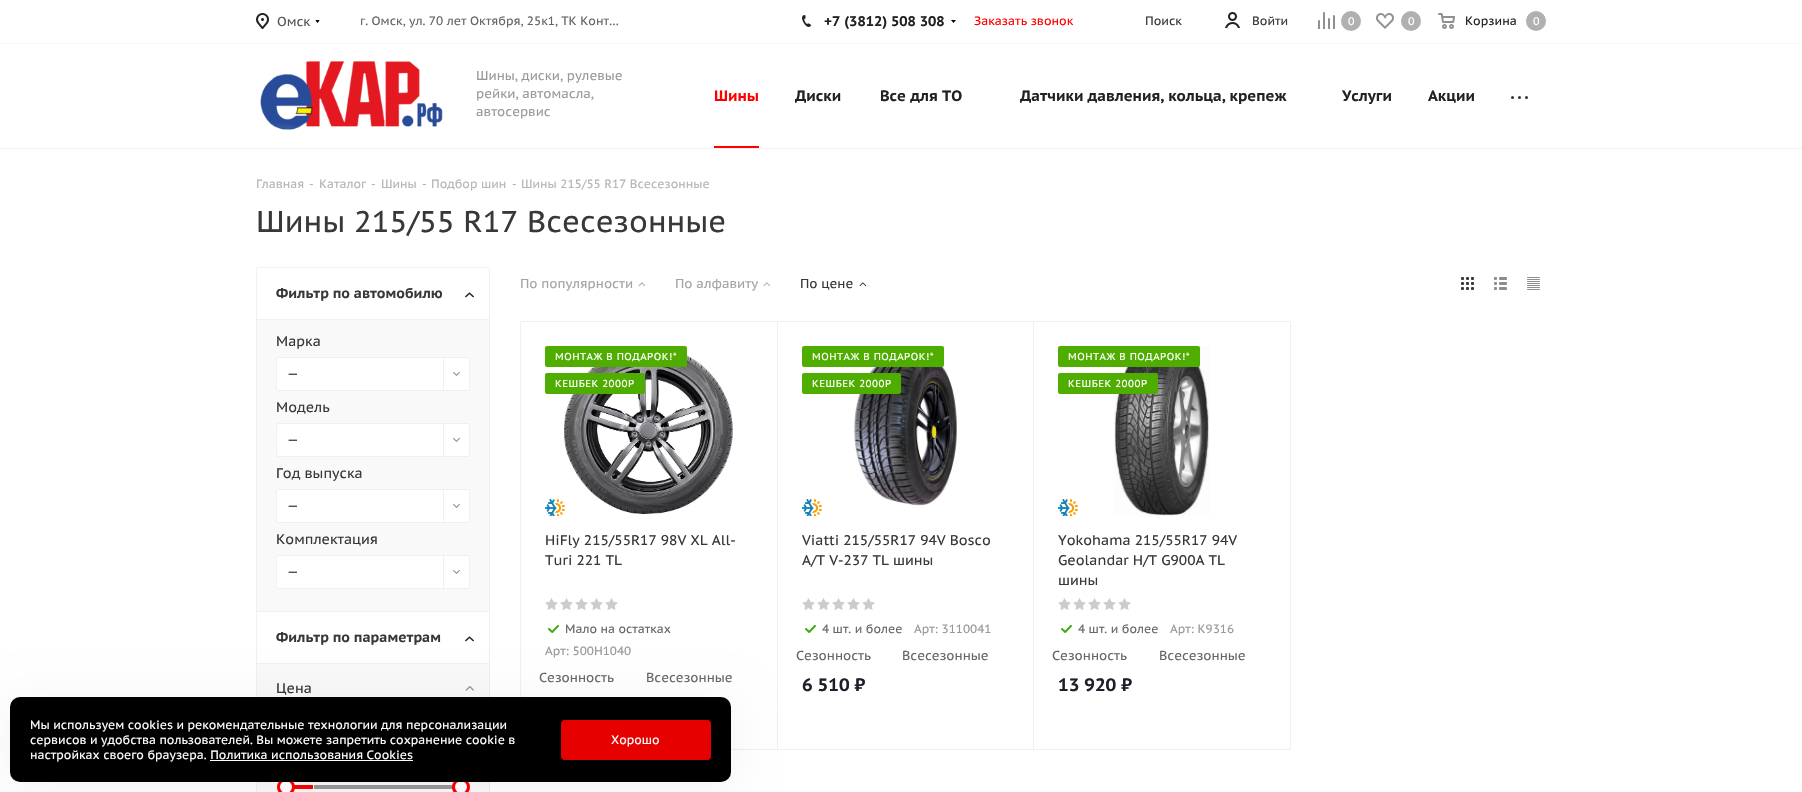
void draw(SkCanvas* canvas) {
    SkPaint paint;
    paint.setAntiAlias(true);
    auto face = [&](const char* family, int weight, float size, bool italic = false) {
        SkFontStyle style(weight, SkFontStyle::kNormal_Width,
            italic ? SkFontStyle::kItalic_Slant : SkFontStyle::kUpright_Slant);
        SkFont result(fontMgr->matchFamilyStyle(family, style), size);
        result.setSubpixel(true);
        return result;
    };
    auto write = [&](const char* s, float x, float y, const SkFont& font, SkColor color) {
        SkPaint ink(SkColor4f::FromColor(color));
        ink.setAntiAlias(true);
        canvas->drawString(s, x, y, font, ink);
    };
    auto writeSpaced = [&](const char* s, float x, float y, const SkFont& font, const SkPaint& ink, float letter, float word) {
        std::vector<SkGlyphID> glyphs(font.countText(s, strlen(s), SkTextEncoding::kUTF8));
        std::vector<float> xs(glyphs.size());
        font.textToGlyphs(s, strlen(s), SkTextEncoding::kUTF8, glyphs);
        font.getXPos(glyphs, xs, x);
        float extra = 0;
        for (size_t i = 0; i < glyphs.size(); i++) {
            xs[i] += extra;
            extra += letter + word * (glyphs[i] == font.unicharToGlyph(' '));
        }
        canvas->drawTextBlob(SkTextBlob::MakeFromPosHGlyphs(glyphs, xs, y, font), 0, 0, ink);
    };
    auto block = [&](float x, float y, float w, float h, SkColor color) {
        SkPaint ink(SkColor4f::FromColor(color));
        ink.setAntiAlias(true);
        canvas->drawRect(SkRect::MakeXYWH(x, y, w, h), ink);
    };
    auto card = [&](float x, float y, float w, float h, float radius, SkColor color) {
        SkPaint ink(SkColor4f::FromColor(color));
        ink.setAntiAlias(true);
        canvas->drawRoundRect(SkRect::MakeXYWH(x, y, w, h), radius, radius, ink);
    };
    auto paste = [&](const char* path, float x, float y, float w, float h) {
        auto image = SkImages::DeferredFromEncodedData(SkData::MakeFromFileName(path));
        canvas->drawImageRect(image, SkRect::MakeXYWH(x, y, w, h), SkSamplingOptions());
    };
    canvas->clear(SK_ColorWHITE);
    block(0, 43, 1802, 1, SkColorSetRGB(246, 246, 246));
    paste("pic1.png", 256, 13, 13, 16);
    auto kFont1 = face("PT Sans Caption", 400, 13);
    write("Омск", 277, 26, kFont1, SkColorSetRGB(85, 85, 85));
    paste("pic2.png", 315, 20, 5, 3);
    auto kFont2 = face("PT Sans Caption", 400, 12.1f);
    write("г. Омск, ул. 70 лет Октября, 25к1, ТК Конт…", 360, 25, kFont2, SkColorSetRGB(102, 102, 102));
    paste("pic3.png", 802, 15, 9, 12);
    auto kFont3 = face("PT Sans Caption", 700, 14);
    write("+7 (3812) 508 308", 824, 26, kFont3, SkColorSetRGB(34, 34, 34));
    paste("pic4.png", 951, 20, 5, 3);
    write("Заказать звонок", 974, 25, kFont2, SkColorSetRGB(255, 0, 0));
    write("Поиск", 1145, 25, kFont2, SkColorSetRGB(56, 56, 56));
    paste("pic5.png", 1225, 12, 15, 16);
    write("Войти", 1252, 25, kFont2, SkColorSetRGB(56, 56, 56));
    paste("pic6.png", 1318, 12, 17, 17);
    paint.setColor(SkColorSetRGB(176, 176, 176));
    canvas->drawCircle(1351, 21, 10, paint);
    auto kFont4 = face("PT Sans Caption", 400, 11);
    write("0", 1348, 25, kFont4, SK_ColorWHITE);
    paste("pic7.png", 1376, 13, 18, 16);
    canvas->drawCircle(1411, 21, 10, paint);
    write("0", 1408, 25, kFont4, SK_ColorWHITE);
    paste("pic8.png", 1438, 13, 17, 16);
    write("Корзина", 1465, 25, kFont2, SkColorSetRGB(34, 34, 34));
    canvas->drawCircle(1536, 21, 10, paint);
    write("0", 1533, 25, kFont4, SK_ColorWHITE);
    paste("pic9.png", 260, 61, 183, 69);
    write("Шины, диски, рулевые", 476, 80, kFont1, SkColorSetRGB(153, 153, 153));
    write("рейки, автомасла,", 476, 98, kFont1, SkColorSetRGB(153, 153, 153));
    write("автосервис", 476, 116, kFont1, SkColorSetRGB(153, 153, 153));
    auto kFont5 = face("PT Sans Caption", 700, 15);
    write("Шины", 714, 101, kFont5, SkColorSetRGB(255, 0, 0));
    block(714, 146, 45, 2, SkColorSetRGB(255, 0, 0));
    write("Диски", 795, 101, kFont5, SkColorSetRGB(34, 34, 34));
    write("Все для ТО", 880, 101, kFont5, SkColorSetRGB(34, 34, 34));
    write("Датчики давления, кольца, крепеж", 1020, 101, kFont5, SkColorSetRGB(34, 34, 34));
    write("Услуги", 1342, 101, kFont5, SkColorSetRGB(34, 34, 34));
    write("Акции", 1428, 101, kFont5, SkColorSetRGB(34, 34, 34));
    block(1511, 96, 17, 3, SkColorSetRGB(51, 51, 51));
    paste("pic10.png", 1511, 96, 17, 3);
    block(0, 148, 1802, 1, SkColorSetRGB(240, 240, 240));
    auto kFont6 = face("PT Sans Caption", 400, 12);
    write("Главная", 256, 188, kFont6, SkColorSetRGB(182, 181, 181));
    write("-", 309, 188, kFont6, SkColorSetRGB(182, 181, 181));
    write("Каталог", 319, 188, kFont6, SkColorSetRGB(182, 181, 181));
    write("-", 371, 188, kFont6, SkColorSetRGB(182, 181, 181));
    write("Шины", 381, 188, kFont6, SkColorSetRGB(182, 181, 181));
    write("-", 422, 188, kFont6, SkColorSetRGB(182, 181, 181));
    write("Подбор шин", 431, 188, kFont6, SkColorSetRGB(182, 181, 181));
    write("-", 512, 188, kFont6, SkColorSetRGB(182, 181, 181));
    write("Шины 215/55 R17 Всесезонные", 521, 188, kFont6, SkColorSetRGB(182, 181, 181));
    auto kFont7 = face("PT Sans Caption", 400, 29.9f);
    write("Шины 215/55 R17 Всесезонные", 256, 232, kFont7, SkColorSetRGB(56, 56, 56));
    paint.setStyle(SkPaint::kStroke_Style);
    paint.setStrokeWidth(1);
    paint.setColor(SkColorSetRGB(240, 240, 240));
    canvas->drawRoundRect(SkRect::MakeXYWH(256.5f, 267.5f, 233, 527), 1.5f, 1.5f, paint);
    block(257, 268, 232, 1, SK_ColorWHITE);
    block(257, 319, 232, 1, SkColorSetRGB(240, 240, 240));
    write("Фильтр по автомобилю", 276, 298, kFont3, SkColorSetRGB(56, 56, 56));
    paste("pic11.png", 465, 292, 9, 6);
    block(257, 320, 232, 291, SkColorSetRGB(249, 249, 249));
    block(257, 611, 232, 1, SkColorSetRGB(240, 240, 240));
    auto kFont8 = face("PT Sans Caption", 400, 14);
    write("Марка", 276, 346, kFont8, SkColorSetRGB(56, 56, 56));
    paint.setStyle(SkPaint::kFill_Style);
    paint.setColor(SK_ColorWHITE);
    canvas->drawRoundRect(SkRect::MakeXYWH(276.5f, 357.5f, 193, 33), 1.5f, 1.5f, paint);
    paint.setStyle(SkPaint::kStroke_Style);
    paint.setColor(SkColorSetRGB(240, 240, 240));
    canvas->drawRoundRect(SkRect::MakeXYWH(276.5f, 357.5f, 193, 33), 1.5f, 1.5f, paint);
    write("—", 287, 378, kFont1, SkColorSetRGB(56, 56, 56));
    paint.setStyle(SkPaint::kFill_Style);
    paint.setColor(SK_ColorWHITE);
    canvas->drawPath(SkPathBuilder().moveTo(443, 358).lineTo(468, 358).cubicTo(468.5f, 358, 469, 358.5f, 469, 359).lineTo(469, 389).cubicTo(469, 389.5f, 468.5f, 390, 468, 390).lineTo(443, 390).close().detach(), paint);
    block(443, 358, 1, 32, SkColorSetRGB(240, 240, 240));
    paste("pic12.png", 453, 372, 7, 4);
    write("Модель", 276, 412, kFont8, SkColorSetRGB(56, 56, 56));
    canvas->drawRoundRect(SkRect::MakeXYWH(276.5f, 423.5f, 193, 33), 1.5f, 1.5f, paint);
    paint.setStyle(SkPaint::kStroke_Style);
    paint.setColor(SkColorSetRGB(240, 240, 240));
    canvas->drawRoundRect(SkRect::MakeXYWH(276.5f, 423.5f, 193, 33), 1.5f, 1.5f, paint);
    write("—", 287, 444, kFont1, SkColorSetRGB(56, 56, 56));
    paint.setStyle(SkPaint::kFill_Style);
    paint.setColor(SK_ColorWHITE);
    canvas->drawPath(SkPathBuilder().moveTo(443, 424).lineTo(468, 424).cubicTo(468.5f, 424, 469, 424.5f, 469, 425).lineTo(469, 455).cubicTo(469, 455.5f, 468.5f, 456, 468, 456).lineTo(443, 456).close().detach(), paint);
    block(443, 424, 1, 32, SkColorSetRGB(240, 240, 240));
    paste("pic12.png", 453, 438, 7, 4);
    write("Год выпуска", 276, 478, kFont8, SkColorSetRGB(56, 56, 56));
    canvas->drawRoundRect(SkRect::MakeXYWH(276.5f, 489.5f, 193, 33), 1.5f, 1.5f, paint);
    paint.setStyle(SkPaint::kStroke_Style);
    paint.setColor(SkColorSetRGB(240, 240, 240));
    canvas->drawRoundRect(SkRect::MakeXYWH(276.5f, 489.5f, 193, 33), 1.5f, 1.5f, paint);
    write("—", 287, 510, kFont1, SkColorSetRGB(56, 56, 56));
    paint.setStyle(SkPaint::kFill_Style);
    paint.setColor(SK_ColorWHITE);
    canvas->drawPath(SkPathBuilder().moveTo(443, 490).lineTo(468, 490).cubicTo(468.5f, 490, 469, 490.5f, 469, 491).lineTo(469, 521).cubicTo(469, 521.5f, 468.5f, 522, 468, 522).lineTo(443, 522).close().detach(), paint);
    block(443, 490, 1, 32, SkColorSetRGB(240, 240, 240));
    paste("pic12.png", 453, 504, 7, 4);
    write("Комплектация", 276, 544, kFont8, SkColorSetRGB(56, 56, 56));
    canvas->drawRoundRect(SkRect::MakeXYWH(276.5f, 555.5f, 193, 33), 1.5f, 1.5f, paint);
    paint.setStyle(SkPaint::kStroke_Style);
    paint.setColor(SkColorSetRGB(240, 240, 240));
    canvas->drawRoundRect(SkRect::MakeXYWH(276.5f, 555.5f, 193, 33), 1.5f, 1.5f, paint);
    write("—", 287, 576, kFont1, SkColorSetRGB(56, 56, 56));
    paint.setStyle(SkPaint::kFill_Style);
    paint.setColor(SK_ColorWHITE);
    canvas->drawPath(SkPathBuilder().moveTo(443, 556).lineTo(468, 556).cubicTo(468.5f, 556, 469, 556.5f, 469, 557).lineTo(469, 587).cubicTo(469, 587.5f, 468.5f, 588, 468, 588).lineTo(443, 588).close().detach(), paint);
    block(443, 556, 1, 32, SkColorSetRGB(240, 240, 240));
    paste("pic12.png", 453, 570, 7, 4);
    block(257, 663, 232, 1, SkColorSetRGB(240, 240, 240));
    write("Фильтр по параметрам", 276, 642, kFont3, SkColorSetRGB(56, 56, 56));
    paste("pic11.png", 465, 636, 9, 6);
    block(257, 664, 232, 128, SkColorSetRGB(249, 249, 249));
    write("Цена", 276, 693, kFont8, SkColorSetRGB(56, 56, 56));
    paste("pic13.png", 465, 686, 9, 5);
    block(292, 785, 22, 4, SkColorSetRGB(255, 0, 0));
    canvas->drawCircle(286, 787, 7.5f, paint);
    paint.setStyle(SkPaint::kStroke_Style);
    paint.setStrokeWidth(3);
    paint.setColor(SkColorSetRGB(255, 0, 0));
    canvas->drawCircle(286, 787, 7.5f, paint);
    block(314, 785, 147, 4, SkColorSetRGB(151, 151, 151));
    paint.setStyle(SkPaint::kFill_Style);
    paint.setColor(SK_ColorWHITE);
    canvas->drawCircle(461, 787, 7.5f, paint);
    paint.setStyle(SkPaint::kStroke_Style);
    paint.setColor(SkColorSetRGB(255, 0, 0));
    canvas->drawCircle(461, 787, 7.5f, paint);
    block(313, 785, 1, 4, SK_ColorWHITE);
    write("По популярности", 520, 288, kFont1, SkColorSetRGB(165, 163, 163));
    paste("pic14.png", 638, 282, 8, 5);
    write("По алфавиту", 675, 288, kFont1, SkColorSetRGB(165, 163, 163));
    paste("pic14.png", 763, 282, 8, 5);
    write("По цене", 800, 288, kFont1, SkColorSetRGB(56, 56, 56));
    paste("pic15.png", 859, 282, 8, 5);
    paste("pic16.png", 1461, 277, 13, 13);
    paste("pic17.png", 1494, 277, 13, 13);
    paste("pic18.png", 1527, 277, 13, 13);
    paint.setStrokeWidth(1);
    paint.setColor(SkColorSetRGB(240, 240, 240));
    canvas->drawRect(SkRect::MakeXYWH(520.5f, 321.5f, 257, 428), paint);
    paste("pic19.png", 564, 346, 169, 168);
    card(545, 346, 142, 21, 2, SkColorSetRGB(79, 173, 0));
    auto kFont9 = face("PT Sans Caption", 400, 10);
    paint.setStyle(SkPaint::kFill_Style);
    paint.setColor(SK_ColorWHITE);
    writeSpaced("МОНТАЖ В ПОДАРОК!*", 555, 360, kFont9, paint, 0.5f, 0);
    card(545, 373, 100, 21, 2, SkColorSetRGB(79, 173, 0));
    writeSpaced("КЕШБЕК 2000Р", 555, 387, kFont9, paint, 0.5f, 0);
    paste("pic20.png", 545, 499, 20, 17);
    write("HiFly 215/55R17 98V XL All-", 545, 545, kFont8, SkColorSetRGB(56, 56, 56));
    write("Turi 221 TL", 545, 565, kFont8, SkColorSetRGB(56, 56, 56));
    paste("pic21.png", 545, 598, 13, 12);
    paste("pic21.png", 560, 598, 13, 12);
    paste("pic21.png", 575, 598, 13, 12);
    paste("pic21.png", 590, 598, 13, 12);
    paste("pic21.png", 605, 598, 13, 12);
    paste("pic22.png", 548, 625, 11, 8);
    write("Мало на остатках", 565, 633, kFont6, SkColorSetRGB(102, 102, 102));
    write("Арт: 500H1040", 545, 655, kFont6, SkColorSetRGB(153, 153, 153));
    write("Сезонность", 539, 682, kFont1, SkColorSetRGB(102, 102, 102));
    write("Всесезонные", 646, 682, kFont1, SkColorSetRGB(102, 102, 102));
    paint.setStyle(SkPaint::kStroke_Style);
    paint.setColor(SkColorSetRGB(240, 240, 240));
    canvas->drawRect(SkRect::MakeXYWH(777.5f, 321.5f, 256, 428), paint);
    paste("pic23.png", 854, 355, 103, 151);
    card(802, 346, 142, 21, 2, SkColorSetRGB(79, 173, 0));
    paint.setStyle(SkPaint::kFill_Style);
    paint.setColor(SK_ColorWHITE);
    writeSpaced("МОНТАЖ В ПОДАРОК!*", 812, 360, kFont9, paint, 0.5f, 0);
    card(802, 373, 99, 21, 2, SkColorSetRGB(79, 173, 0));
    writeSpaced("КЕШБЕК 2000Р", 812, 387, kFont9, paint, 0.5f, 0);
    paste("pic20.png", 802, 499, 20, 17);
    write("Viatti 215/55R17 94V Bosco", 802, 545, kFont8, SkColorSetRGB(56, 56, 56));
    write("A/T V-237 TL шины", 802, 565, kFont8, SkColorSetRGB(56, 56, 56));
    paste("pic21.png", 802, 598, 13, 12);
    paste("pic21.png", 817, 598, 13, 12);
    paste("pic21.png", 832, 598, 13, 12);
    paste("pic21.png", 847, 598, 13, 12);
    paste("pic21.png", 862, 598, 13, 12);
    paste("pic22.png", 805, 625, 11, 8);
    write("4 шт. и более", 822, 633, kFont6, SkColorSetRGB(102, 102, 102));
    write("Арт: 3110041", 914, 633, kFont6, SkColorSetRGB(153, 153, 153));
    write("Сезонность", 796, 660, kFont1, SkColorSetRGB(102, 102, 102));
    write("Всесезонные", 902, 660, kFont1, SkColorSetRGB(102, 102, 102));
    auto kFont10 = face("PT Sans Caption", 700, 18);
    write("6 510 ₽", 802, 691, kFont10, SkColorSetRGB(29, 32, 41));
    paint.setStyle(SkPaint::kStroke_Style);
    paint.setColor(SkColorSetRGB(240, 240, 240));
    canvas->drawRect(SkRect::MakeXYWH(1033.5f, 321.5f, 257, 428), paint);
    paste("pic24.png", 1114, 346, 96, 170);
    card(1058, 346, 142, 21, 2, SkColorSetRGB(79, 173, 0));
    paint.setStyle(SkPaint::kFill_Style);
    paint.setColor(SK_ColorWHITE);
    writeSpaced("МОНТАЖ В ПОДАРОК!*", 1068, 360, kFont9, paint, 0.5f, 0);
    card(1058, 373, 100, 21, 2, SkColorSetRGB(79, 173, 0));
    writeSpaced("КЕШБЕК 2000Р", 1068, 387, kFont9, paint, 0.5f, 0);
    paste("pic20.png", 1058, 499, 20, 17);
    write("Yokohama 215/55R17 94V", 1058, 545, kFont8, SkColorSetRGB(56, 56, 56));
    write("Geolandar H/T G900A TL", 1058, 565, kFont8, SkColorSetRGB(56, 56, 56));
    write("шины", 1058, 585, kFont8, SkColorSetRGB(56, 56, 56));
    paste("pic21.png", 1058, 598, 13, 12);
    paste("pic21.png", 1073, 598, 13, 12);
    paste("pic21.png", 1088, 598, 13, 12);
    paste("pic21.png", 1103, 598, 13, 12);
    paste("pic21.png", 1118, 598, 13, 12);
    paste("pic22.png", 1061, 625, 11, 8);
    write("4 шт. и более", 1078, 633, kFont6, SkColorSetRGB(102, 102, 102));
    write("Арт: K9316", 1170, 633, kFont6, SkColorSetRGB(153, 153, 153));
    write("Сезонность", 1052, 660, kFont1, SkColorSetRGB(102, 102, 102));
    write("Всесезонные", 1159, 660, kFont1, SkColorSetRGB(102, 102, 102));
    write("13 920 ₽", 1058, 691, kFont10, SkColorSetRGB(29, 32, 41));
    paint.setColor(SkColorSetARGB(13, 0, 0, 0));
    paint.setMaskFilter(SkMaskFilter::MakeBlur(kNormal_SkBlurStyle, 22));
    canvas->drawRoundRect(SkRect::MakeXYWH(10, 701, 721, 85), 10, 10, paint);
    paint.setMaskFilter(nullptr);
    card(10, 697, 721, 85, 10, SK_ColorBLACK);
    write("Мы используем cookies и рекомендательные технологии для персонализации", 30, 729, kFont6, SK_ColorWHITE);
    write("сервисов и удобства пользователей. Вы можете запретить сохранение cookie в", 30, 744, kFont6, SK_ColorWHITE);
    write("настройках своего браузера. Политика использования Cookies", 30, 759, kFont6, SK_ColorWHITE);
    block(210, 760, 203, 1, SK_ColorWHITE);
    card(561, 720, 150, 40, 4, SkColorSetRGB(230, 0, 0));
    write("Хорошо", 611, 744, kFont6, SK_ColorWHITE);
}
